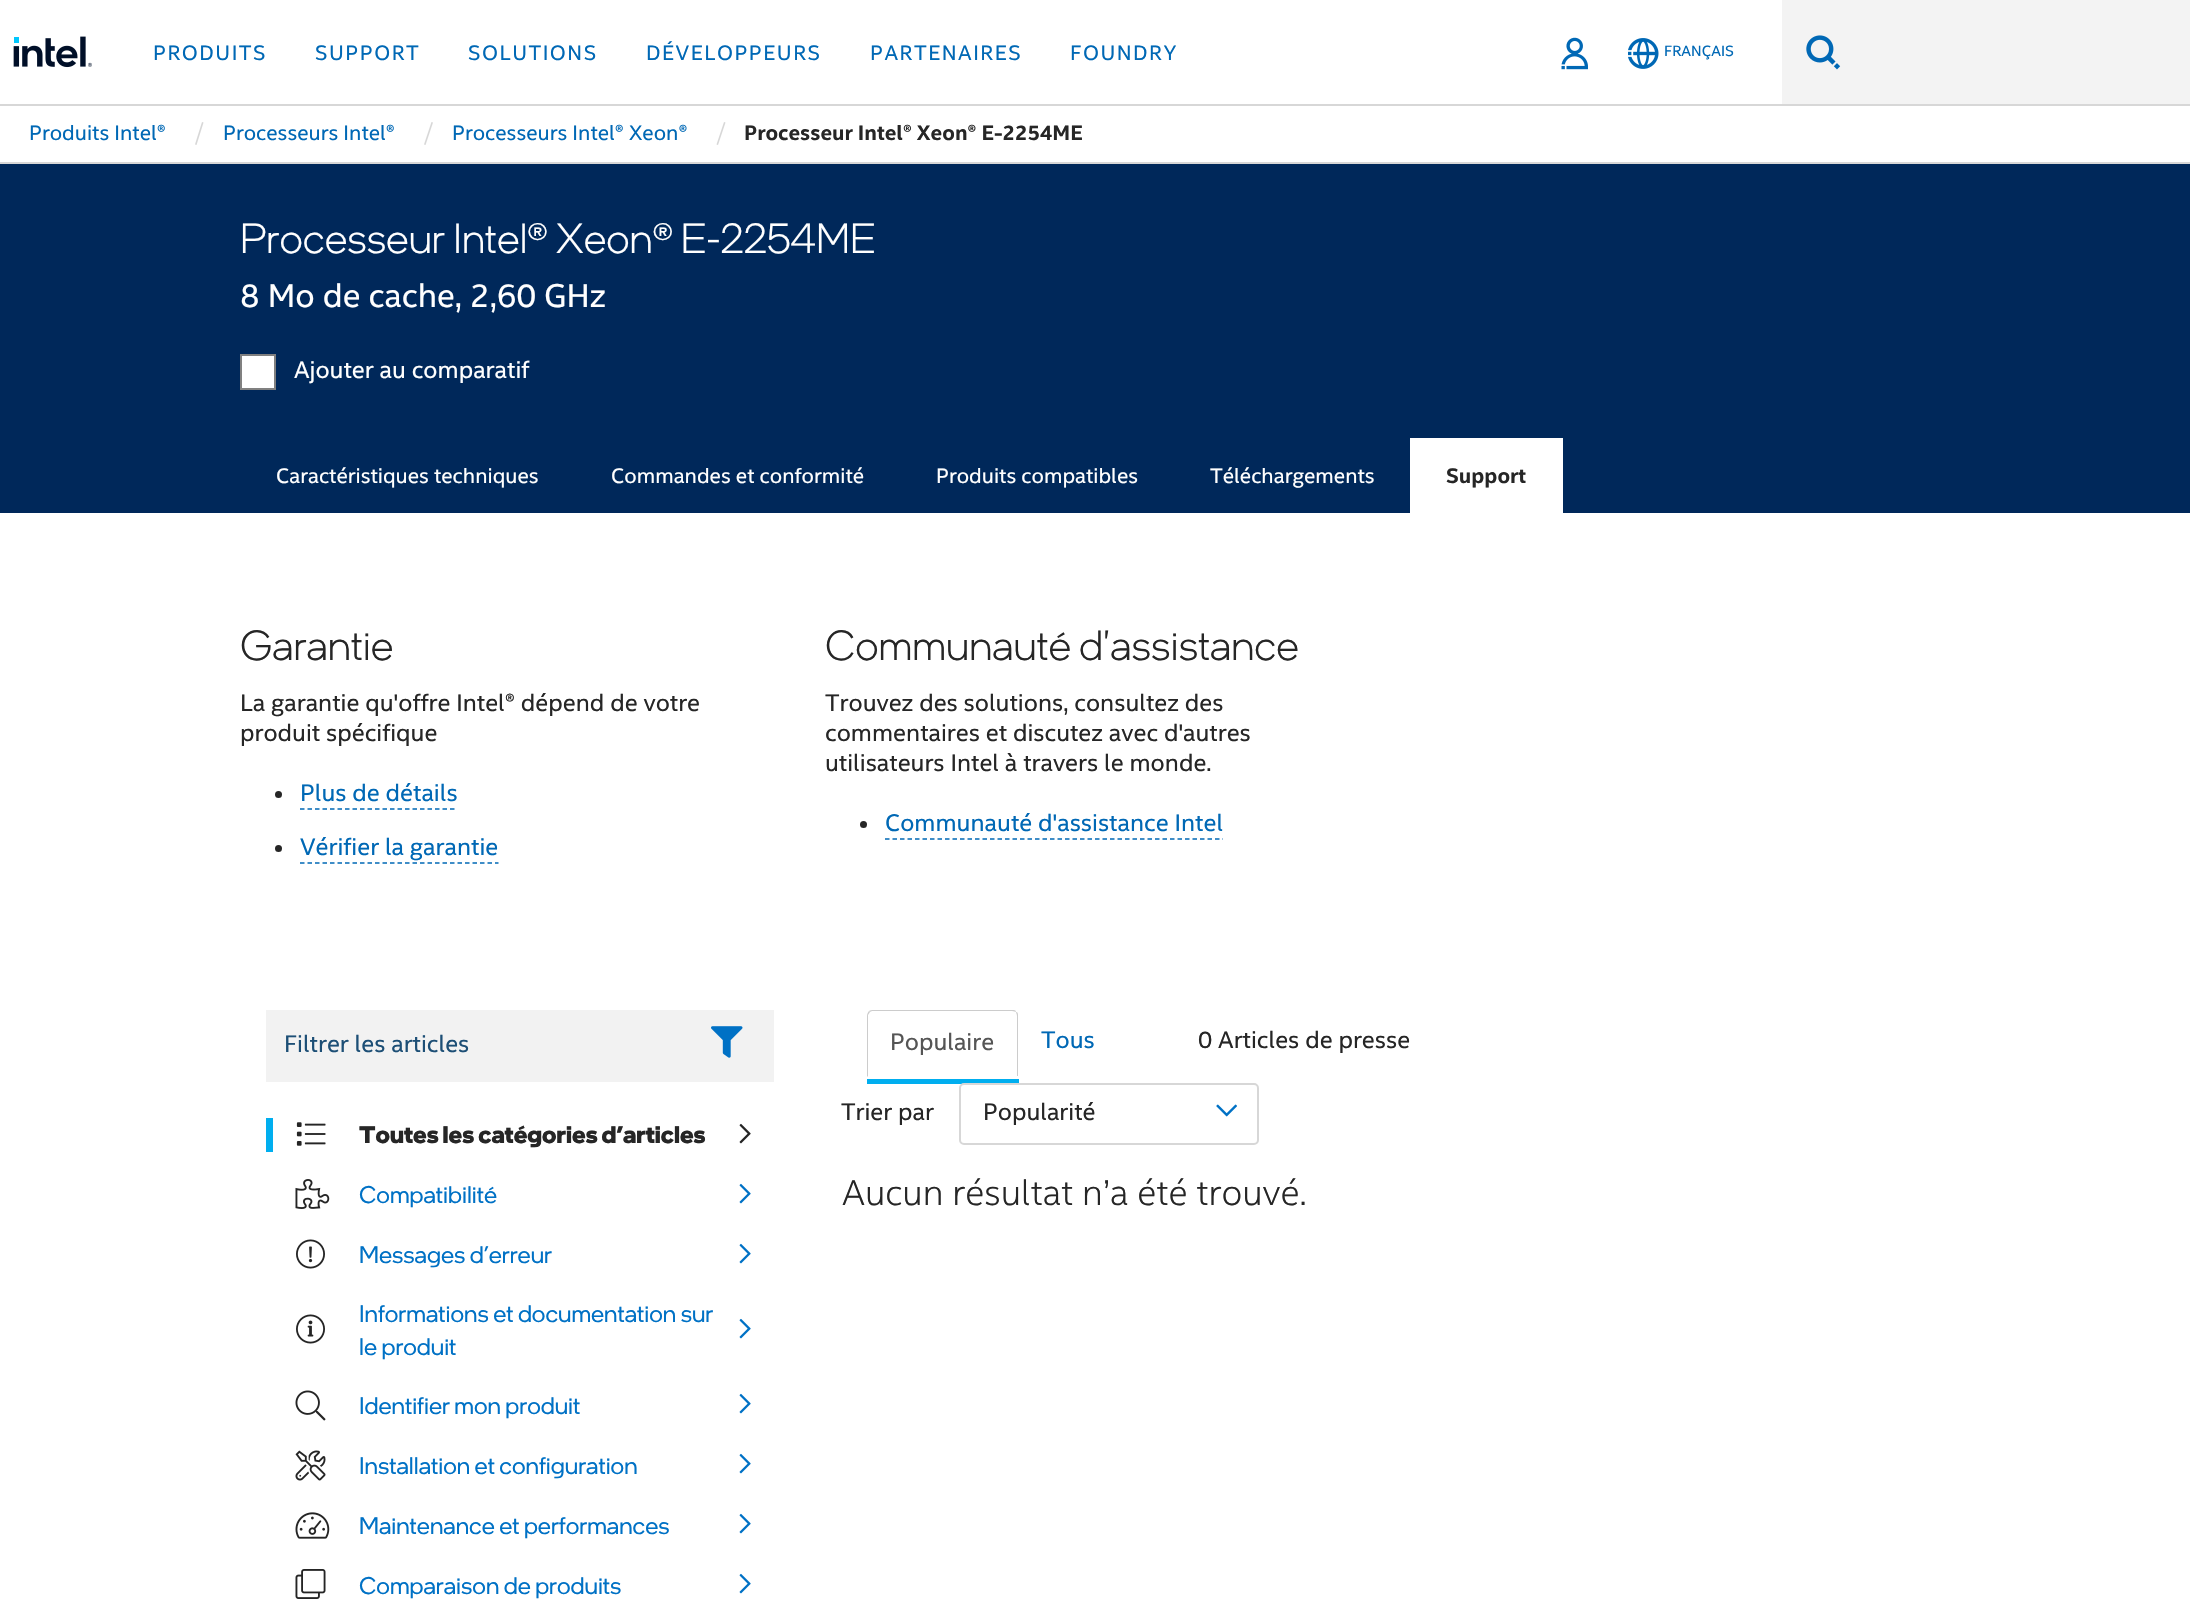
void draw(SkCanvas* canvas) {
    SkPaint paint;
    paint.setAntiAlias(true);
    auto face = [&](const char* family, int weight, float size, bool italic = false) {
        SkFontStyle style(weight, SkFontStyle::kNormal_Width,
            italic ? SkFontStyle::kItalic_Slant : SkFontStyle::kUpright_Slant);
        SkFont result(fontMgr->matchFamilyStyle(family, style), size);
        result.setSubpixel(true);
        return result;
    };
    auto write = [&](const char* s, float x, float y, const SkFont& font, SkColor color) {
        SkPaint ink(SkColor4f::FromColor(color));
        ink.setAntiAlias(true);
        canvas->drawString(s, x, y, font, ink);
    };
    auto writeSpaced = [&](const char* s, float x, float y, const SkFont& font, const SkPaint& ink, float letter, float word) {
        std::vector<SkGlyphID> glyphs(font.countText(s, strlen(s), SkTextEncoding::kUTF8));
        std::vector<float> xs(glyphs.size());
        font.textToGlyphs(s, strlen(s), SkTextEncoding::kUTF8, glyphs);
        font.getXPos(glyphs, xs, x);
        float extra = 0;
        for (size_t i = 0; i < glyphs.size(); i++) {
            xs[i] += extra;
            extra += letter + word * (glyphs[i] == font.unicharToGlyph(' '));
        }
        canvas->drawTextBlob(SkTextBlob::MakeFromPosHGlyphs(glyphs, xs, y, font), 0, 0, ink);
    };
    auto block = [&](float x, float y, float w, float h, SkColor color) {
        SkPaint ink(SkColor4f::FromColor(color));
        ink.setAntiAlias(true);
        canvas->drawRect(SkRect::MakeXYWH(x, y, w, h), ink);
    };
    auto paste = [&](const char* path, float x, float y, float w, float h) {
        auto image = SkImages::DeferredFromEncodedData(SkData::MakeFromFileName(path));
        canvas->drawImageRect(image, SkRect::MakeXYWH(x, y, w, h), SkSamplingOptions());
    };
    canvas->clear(SK_ColorWHITE);
    block(0, 104, 2190, 2, SkColorSetRGB(215, 215, 215));
    paste("pic1.png", 13, 36, 79, 32);
    auto kFont1 = face("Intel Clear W", 400, 21);
    paint.setColor(SkColorSetRGB(0, 104, 181));
    writeSpaced("PRODUITS", 153, 60, kFont1, paint, 1.5f, 0);
    writeSpaced("SUPPORT", 315, 60, kFont1, paint, 1.5f, 0);
    writeSpaced("SOLUTIONS", 468, 60, kFont1, paint, 1.5f, 0);
    writeSpaced("DÉVELOPPEURS", 646, 60, kFont1, paint, 1.5f, 0);
    writeSpaced("PARTENAIRES", 870, 60, kFont1, paint, 1.5f, 0);
    writeSpaced("FOUNDRY", 1070, 60, kFont1, paint, 1.5f, 0);
    paste("pic2.png", 1561, 37, 27, 33);
    paste("pic3.png", 1628, 38, 31, 31);
    auto kFont2 = face("Intel Clear W", 400, 15);
    write("FRANÇAIS", 1664, 56, kFont2, SkColorSetRGB(0, 104, 181));
    block(1782, 0, 408, 104, SkColorSetRGB(243, 243, 243));
    paste("pic4.png", 1806, 35, 35, 35);
    block(0, 162, 2190, 2, SkColorSetRGB(215, 215, 215));
    write("Produits Intel®", 29, 140, kFont1, SkColorSetRGB(0, 104, 181));
    paint.setColor(SkColorSetRGB(215, 215, 215));
    canvas->drawPath(SkPathBuilder().moveTo(202, 122).lineTo(203.5f, 122.5f).lineTo(196.5f, 145).lineTo(195, 144.5f).close().detach(), paint);
    write("Processeurs Intel®", 223, 140, kFont1, SkColorSetRGB(0, 104, 181));
    canvas->drawPath(SkPathBuilder().moveTo(431.5f, 122).lineTo(433, 122.5f).lineTo(425.5f, 145).lineTo(424, 144.5f).close().detach(), paint);
    write("Processeurs Intel® Xeon®", 452, 140, kFont1, SkColorSetRGB(0, 104, 181));
    canvas->drawPath(SkPathBuilder().moveTo(724, 122).lineTo(725.5f, 122.5f).lineTo(718, 145).lineTo(716.5f, 144.5f).close().detach(), paint);
    auto kFont3 = face("Intel Clear W", 700, 21);
    write("Processeur Intel® Xeon® E-2254ME", 744, 140, kFont3, SkColorSetRGB(38, 38, 38));
    block(0, 164, 2190, 349, SkColorSetRGB(0, 40, 90));
    auto kFont4 = face("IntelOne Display", 300, 42);
    write("Processeur Intel® Xeon® E-2254ME", 240, 253, kFont4, SK_ColorWHITE);
    auto kFont5 = face("Intel Clear W", 400, 33);
    write("8 Mo de cache, 2,60 GHz", 240, 307, kFont5, SK_ColorWHITE);
    paint.setColor(SK_ColorWHITE);
    canvas->drawRect(SkRect::MakeXYWH(241, 355, 34, 34), paint);
    paint.setStyle(SkPaint::kStroke_Style);
    paint.setStrokeWidth(2);
    paint.setColor(SkColorSetRGB(128, 128, 128));
    canvas->drawRect(SkRect::MakeXYWH(241, 355, 34, 34), paint);
    auto kFont6 = face("Intel Clear W", 400, 24);
    write("Ajouter au comparatif", 294, 378, kFont6, SK_ColorWHITE);
    write("Caractéristiques techniques", 276, 483, kFont1, SK_ColorWHITE);
    write("Commandes et conformité", 611, 483, kFont1, SK_ColorWHITE);
    write("Produits compatibles", 936, 483, kFont1, SK_ColorWHITE);
    write("Téléchargements", 1210, 483, kFont1, SK_ColorWHITE);
    block(1410, 438, 153, 75, SK_ColorWHITE);
    write("Support", 1446, 483, kFont3, SkColorSetRGB(38, 38, 38));
    write("Garantie", 240, 660, kFont4, SkColorSetRGB(38, 38, 38));
    write("La garantie qu'offre Intel® dépend de votre", 240, 711, kFont6, SkColorSetRGB(38, 38, 38));
    write("produit spécifique", 240, 741, kFont6, SkColorSetRGB(38, 38, 38));
    paint.setStyle(SkPaint::kFill_Style);
    paint.setColor(SkColorSetRGB(38, 38, 38));
    canvas->drawCircle(278.5f, 794.5f, 3.5f, paint);
    write("Plus de détails", 300, 801, kFont6, SkColorSetRGB(0, 104, 181));
    paint.setStyle(SkPaint::kStroke_Style);
    paint.setStrokeWidth(1.5f);
    paint.setColor(SkColorSetRGB(0, 104, 181));
    paint.setPathEffect(SkDashPathEffect::Make({{4.5f, 3}}, 0));
    canvas->drawPath(SkPathBuilder().moveTo(300, 809).lineTo(457.5f, 809).detach(), paint);
    paint.setPathEffect(nullptr);
    paint.setStyle(SkPaint::kFill_Style);
    paint.setColor(SkColorSetRGB(38, 38, 38));
    canvas->drawCircle(278.5f, 848.5f, 3.5f, paint);
    write("Vérifier la garantie", 300, 855, kFont6, SkColorSetRGB(0, 104, 181));
    paint.setStyle(SkPaint::kStroke_Style);
    paint.setColor(SkColorSetRGB(0, 104, 181));
    paint.setPathEffect(SkDashPathEffect::Make({{4.5f, 3}}, 0));
    canvas->drawPath(SkPathBuilder().moveTo(300, 863).lineTo(498.5f, 863).detach(), paint);
    paint.setPathEffect(nullptr);
    write("Communauté d'assistance", 825, 660, kFont4, SkColorSetRGB(38, 38, 38));
    write("Trouvez des solutions, consultez des", 825, 711, kFont6, SkColorSetRGB(38, 38, 38));
    write("commentaires et discutez avec d'autres", 825, 741, kFont6, SkColorSetRGB(38, 38, 38));
    write("utilisateurs Intel à travers le monde.", 825, 771, kFont6, SkColorSetRGB(38, 38, 38));
    paint.setStyle(SkPaint::kFill_Style);
    paint.setColor(SkColorSetRGB(38, 38, 38));
    canvas->drawCircle(863.5f, 824.5f, 3.5f, paint);
    write("Communauté d'assistance Intel", 885, 831, kFont6, SkColorSetRGB(0, 104, 181));
    paint.setStyle(SkPaint::kStroke_Style);
    paint.setColor(SkColorSetRGB(0, 104, 181));
    paint.setPathEffect(SkDashPathEffect::Make({{4.5f, 3}}, 0));
    canvas->drawPath(SkPathBuilder().moveTo(885, 839).lineTo(1223, 839).detach(), paint);
    paint.setPathEffect(nullptr);
    block(266, 1010, 508, 72, SkColorSetRGB(242, 242, 242));
    write("Filtrer les articles", 284, 1052, kFont6, SkColorSetRGB(29, 79, 118));
    paste("pic5.png", 711, 1026, 32, 32);
    block(266, 1118, 7, 34, SkColorSetRGB(0, 174, 239));
    paste("pic6.png", 296, 1122, 30, 24);
    auto kFont7 = face("IntelOne Display", 700, 24);
    write("Toutes les catégories d’articles", 359, 1143, kFont7, SkColorSetRGB(38, 38, 38));
    paste("pic7.png", 739, 1123, 12, 21);
    paste("pic8.png", 295, 1179, 35, 30);
    auto kFont8 = face("IntelOne Display", 400, 24);
    write("Compatibilité", 359, 1203, kFont8, SkColorSetRGB(0, 113, 197));
    paste("pic9.png", 739, 1183, 12, 21);
    paste("pic10.png", 296, 1239, 29, 30);
    write("Messages d’erreur", 359, 1263, kFont8, SkColorSetRGB(0, 113, 197));
    paste("pic9.png", 739, 1243, 12, 21);
    paste("pic11.png", 296, 1314, 29, 30);
    write("Informations et documentation sur", 359, 1322, kFont8, SkColorSetRGB(0, 113, 197));
    write("le produit", 359, 1355, kFont8, SkColorSetRGB(0, 113, 197));
    paste("pic9.png", 739, 1318, 12, 21);
    paste("pic12.png", 295, 1390, 31, 31);
    write("Identifier mon produit", 359, 1414, kFont8, SkColorSetRGB(0, 113, 197));
    paste("pic9.png", 739, 1393, 12, 21);
    paste("pic13.png", 295, 1450, 31, 31);
    write("Installation et configuration", 359, 1474, kFont8, SkColorSetRGB(0, 113, 197));
    paste("pic9.png", 739, 1453, 12, 21);
    paste("pic14.png", 295, 1512, 35, 27);
    write("Maintenance et performances", 359, 1534, kFont8, SkColorSetRGB(0, 113, 197));
    paste("pic9.png", 739, 1513, 12, 21);
    paste("pic15.png", 295, 1569, 31, 30);
    write("Comparaison de produits", 359, 1594, kFont8, SkColorSetRGB(0, 113, 197));
    paste("pic9.png", 739, 1573, 12, 21);
    block(867, 1079, 152, 5, SkColorSetRGB(0, 174, 239));
    paint.setStyle(SkPaint::kFill_Style);
    paint.setColor(SkColorSetRGB(204, 204, 204));
    canvas->drawPath(SkPathBuilder().moveTo(873, 1010).cubicTo(872, 1010, 870, 1010, 869, 1011).lineTo(870, 1012).cubicTo(871, 1011, 872, 1011, 873, 1011).lineTo(1012, 1011).cubicTo(1014, 1011, 1015, 1012, 1016, 1012).cubicTo(1016, 1010, 1014, 1010, 1012, 1010).close().detach(), paint);
    canvas->drawPath(SkPathBuilder().moveTo(1018, 1076).lineTo(1018, 1016).cubicTo(1018, 1014, 1018, 1012, 1016, 1012).cubicTo(1016, 1013, 1017, 1014, 1017, 1016).lineTo(1017, 1076).close().detach(), paint);
    canvas->drawPath(SkPathBuilder().moveTo(867, 1077).lineTo(868, 1076).lineTo(868, 1015).lineTo(870, 1012).lineTo(869, 1011).cubicTo(868, 1012, 867, 1014, 867, 1016).close().detach(), paint);
    write("Populaire", 890, 1050, kFont6, SkColorSetRGB(85, 85, 85));
    write("Tous", 1041, 1048, kFont6, SkColorSetRGB(0, 104, 181));
    write("0 Articles de presse", 1198, 1048, kFont6, SkColorSetRGB(38, 38, 38));
    write("Trier par", 841, 1120, kFont6, SkColorSetRGB(38, 38, 38));
    paint.setStyle(SkPaint::kStroke_Style);
    paint.setStrokeWidth(2);
    paint.setColor(SkColorSetRGB(215, 215, 215));
    canvas->drawRoundRect(SkRect::MakeXYWH(960, 1084, 298, 60), 4, 4, paint);
    write("Popularité", 983, 1120, kFont6, SkColorSetRGB(38, 38, 38));
    paste("pic16.png", 1216, 1104, 21, 13);
    auto kFont9 = face("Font", 300, 36);
    write("Aucun résultat n’a été trouvé.", 842, 1205, kFont9, SkColorSetRGB(38, 38, 38));
}
